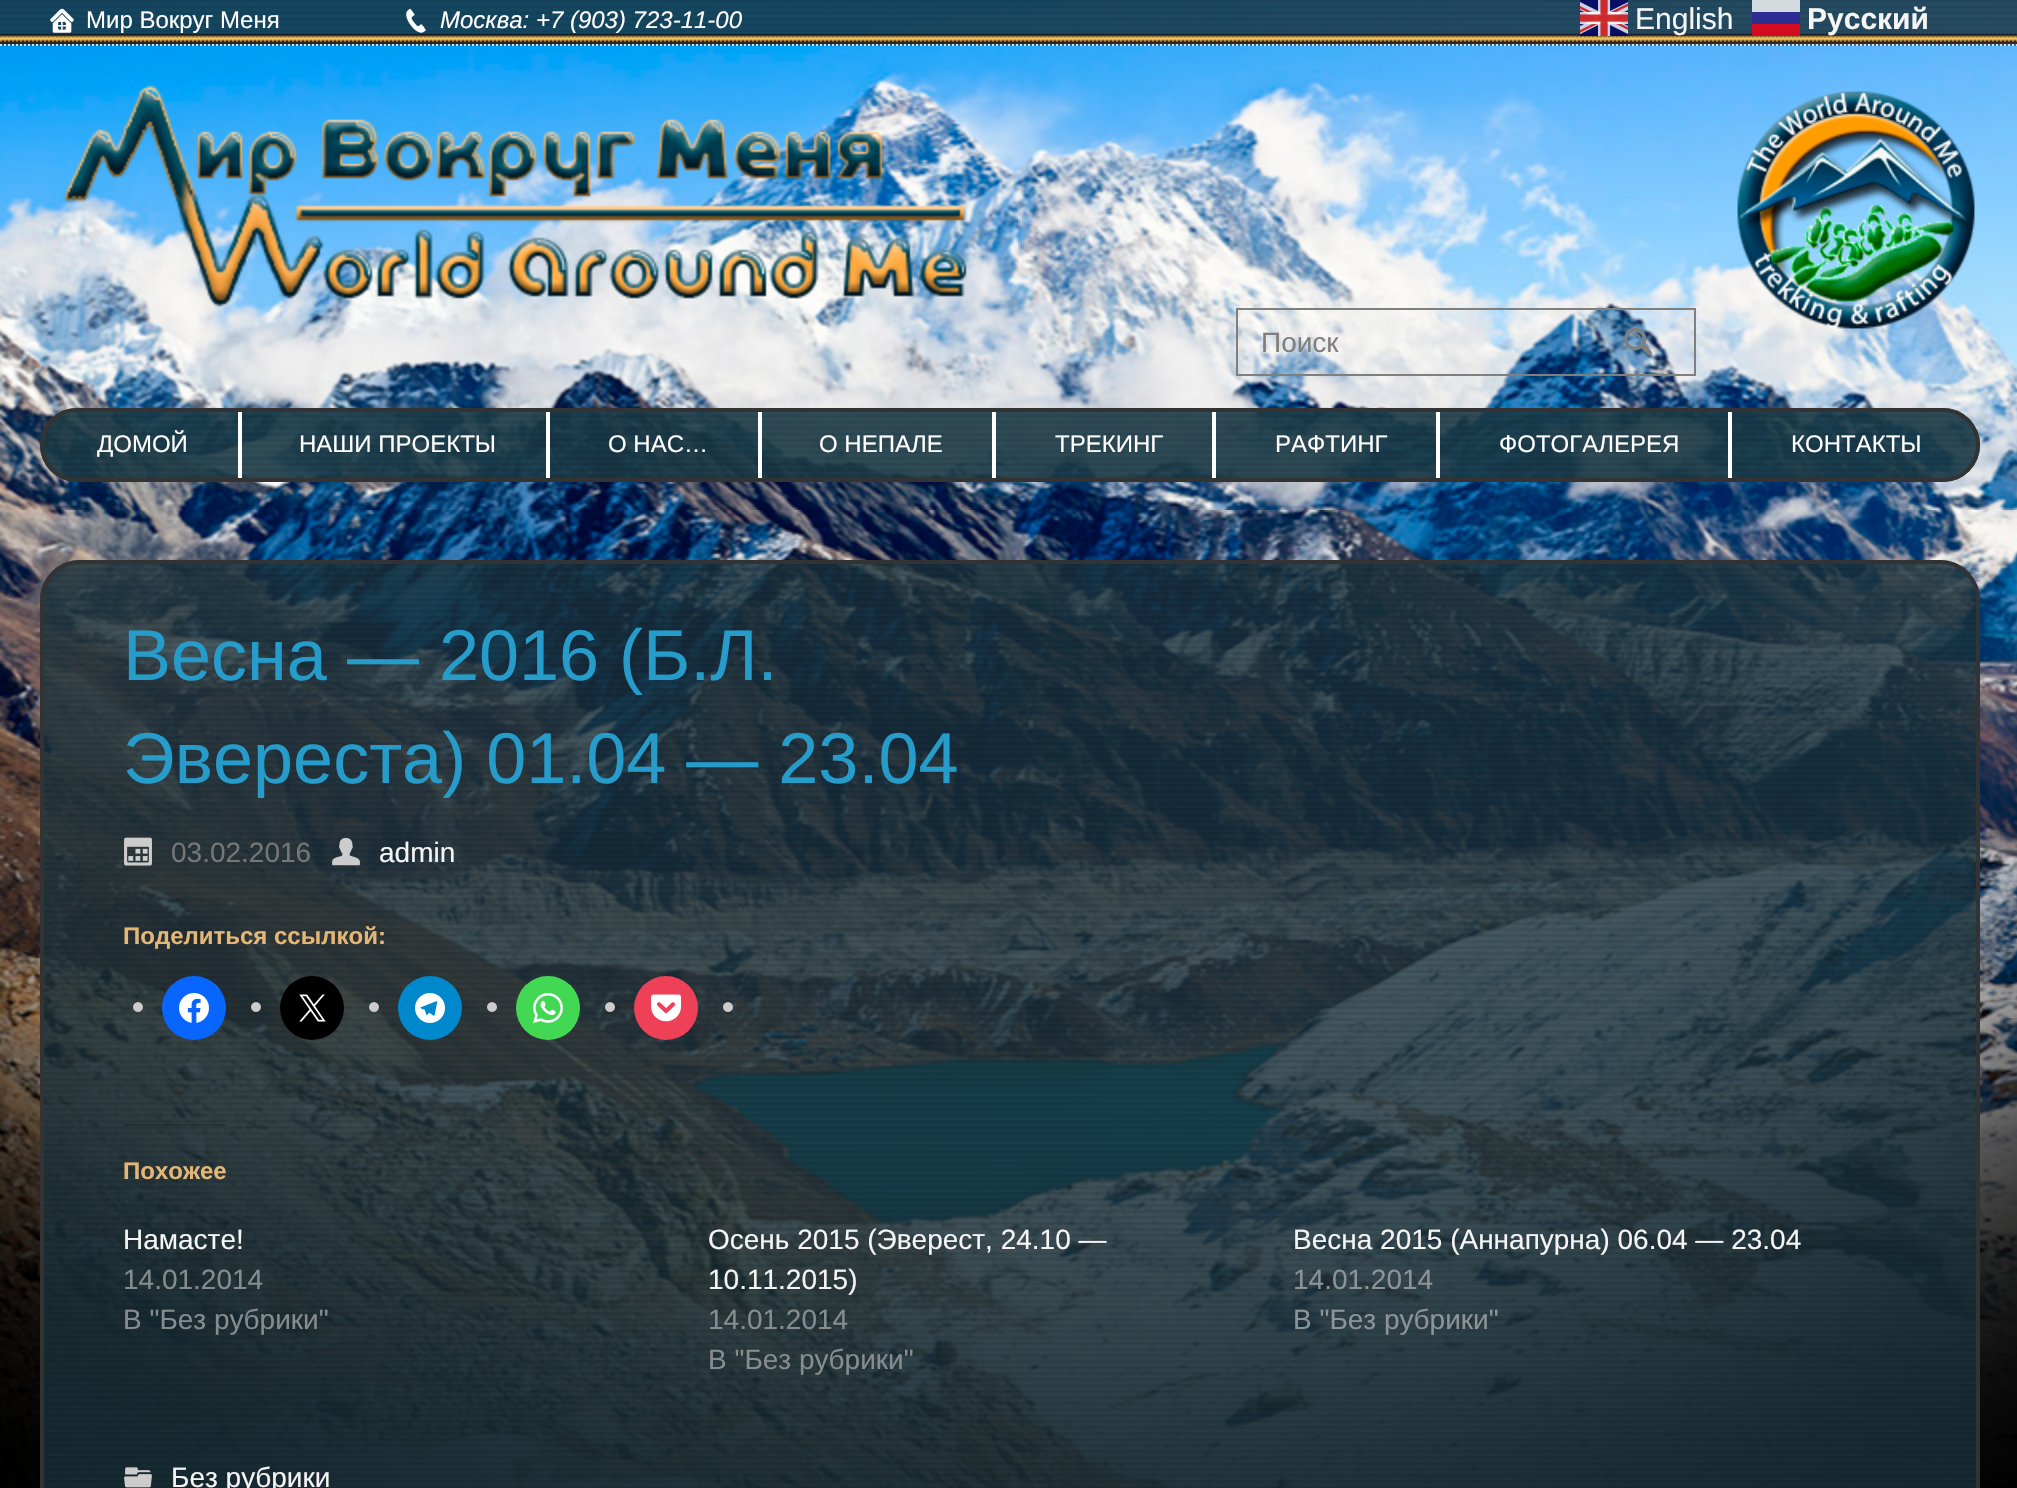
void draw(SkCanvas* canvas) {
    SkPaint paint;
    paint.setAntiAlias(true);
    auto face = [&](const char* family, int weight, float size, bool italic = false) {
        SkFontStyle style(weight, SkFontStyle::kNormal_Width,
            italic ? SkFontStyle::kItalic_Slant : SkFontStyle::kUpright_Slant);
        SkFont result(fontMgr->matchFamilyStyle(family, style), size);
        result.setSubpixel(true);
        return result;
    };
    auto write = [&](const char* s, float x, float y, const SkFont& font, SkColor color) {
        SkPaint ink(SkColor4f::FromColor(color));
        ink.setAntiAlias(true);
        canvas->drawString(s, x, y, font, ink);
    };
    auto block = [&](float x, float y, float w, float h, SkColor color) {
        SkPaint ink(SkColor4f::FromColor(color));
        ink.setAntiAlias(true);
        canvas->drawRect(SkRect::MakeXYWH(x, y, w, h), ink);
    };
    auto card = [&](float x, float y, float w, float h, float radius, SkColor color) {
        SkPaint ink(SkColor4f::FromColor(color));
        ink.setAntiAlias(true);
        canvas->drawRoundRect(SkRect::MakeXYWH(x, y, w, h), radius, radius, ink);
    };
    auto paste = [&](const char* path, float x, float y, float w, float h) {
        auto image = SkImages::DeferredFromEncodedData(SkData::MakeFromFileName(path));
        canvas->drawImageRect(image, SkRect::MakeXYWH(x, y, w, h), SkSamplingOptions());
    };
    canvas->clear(SK_ColorBLACK);
    paste("pic1.png", 0, 0, 2017, 1488);
    block(0, 0, 2017, 46, SkColorSetARGB(128, 31, 125, 163));
    paste("pic2.png", 0, 0, 2017, 46);
    paint.setStyle(SkPaint::kStroke_Style);
    paint.setStrokeWidth(2);
    paint.setColor(SkColorSetRGB(221, 221, 221));
    paint.setPathEffect(SkDashPathEffect::Make({{2, 2}}, 0));
    canvas->drawPath(SkPathBuilder().moveTo(0, 45).lineTo(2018, 45).detach(), paint);
    paint.setPathEffect(nullptr);
    paste("pic3.png", 50, 8, 24, 25);
    auto kFont1 = face("Liberation Sans", 400, 24);
    write("Мир Вокруг Меня", 86, 28, kFont1, SK_ColorWHITE);
    paste("pic4.png", 406, 8, 20, 25);
    auto kFont2 = face("Liberation Sans", 400, 24, true);
    write("Москва: +7 (903) 723-11-00", 440, 28, kFont2, SK_ColorWHITE);
    paste("pic5.png", 1580, 0, 48, 36);
    auto kFont3 = face("Liberation Sans", 400, 30);
    write("English", 1635, 29, kFont3, SkColorSetRGB(245, 245, 245));
    block(1752, 0, 48, 36, SkColorSetARGB(204, 255, 255, 255));
    block(1752, 12, 48, 24, SkColorSetARGB(204, 1, 1, 126));
    block(1752, 24, 48, 12, SkColorSetARGB(204, 254, 1, 1));
    auto kFont4 = face("Liberation Sans", 700, 30);
    write("Русский", 1807, 29, kFont4, SkColorSetRGB(245, 245, 245));
    paste("pic6.png", 63, 85, 904, 222);
    paste("pic7.png", 1737, 91, 238, 238);
    paint.setColor(SkColorSetRGB(127, 127, 127));
    canvas->drawRect(SkRect::MakeXYWH(1237, 309, 458, 66), paint);
    auto kFont5 = face("Liberation Sans", 400, 28);
    write("Поиск", 1261, 352, kFont5, SkColorSetRGB(127, 127, 127));
    paste("pic8.png", 1624, 327, 28, 29);
    card(40, 408, 1940, 74, 37, SkColorSetARGB(191, 31, 125, 163));
    paste("pic9.png", 40, 408, 1940, 74);
    paint.setStrokeWidth(4);
    paint.setColor(SkColorSetRGB(51, 51, 51));
    canvas->drawRoundRect(SkRect::MakeXYWH(42, 410, 1936, 70), 35, 35, paint);
    block(238, 412, 4, 66, SK_ColorWHITE);
    write("ДОМОЙ", 97, 452, kFont1, SK_ColorWHITE);
    block(546, 412, 4, 66, SK_ColorWHITE);
    write("НАШИ ПРОЕКТЫ", 299, 452, kFont1, SK_ColorWHITE);
    block(758, 412, 4, 66, SK_ColorWHITE);
    write("О НАС…", 608, 452, kFont1, SK_ColorWHITE);
    block(992, 412, 4, 66, SK_ColorWHITE);
    write("О НЕПАЛЕ", 819, 452, kFont1, SK_ColorWHITE);
    block(1212, 412, 4, 66, SK_ColorWHITE);
    write("ТРЕКИНГ", 1055, 452, kFont1, SK_ColorWHITE);
    block(1436, 412, 4, 66, SK_ColorWHITE);
    write("РАФТИНГ", 1275, 452, kFont1, SK_ColorWHITE);
    block(1728, 412, 4, 66, SK_ColorWHITE);
    write("ФОТОГАЛЕРЕЯ", 1499, 452, kFont1, SK_ColorWHITE);
    write("КОНТАКТЫ", 1791, 452, kFont1, SK_ColorWHITE);
    card(40, 560, 1940, 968, 40, SkColorSetARGB(128, 31, 125, 163));
    paste("pic10.png", 40, 560, 1940, 928);
    canvas->drawRoundRect(SkRect::MakeXYWH(42, 562, 1936, 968), 38, 38, paint);
    auto kFont6 = face("Liberation Sans", 400, 72);
    write("Весна — 2016 (Б.Л.", 123, 680, kFont6, SkColorSetRGB(38, 156, 203));
    write("Эвереста) 01.04 — 23.04", 123, 783, kFont6, SkColorSetRGB(38, 156, 203));
    paste("pic11.png", 124, 837, 28, 29);
    write("03.02.2016", 171, 862, kFont5, SkColorSetRGB(119, 119, 119));
    paste("pic12.png", 332, 837, 28, 29);
    write("admin", 379, 862, kFont5, SkColorSetRGB(245, 245, 245));
    auto kFont7 = face("Liberation Sans", 700, 24);
    write("Поделиться ссылкой:", 123, 944, kFont7, SkColorSetRGB(229, 183, 118));
    paste("pic13.png", 133, 1002, 10, 10);
    paint.setStyle(SkPaint::kFill_Style);
    paint.setColor(SkColorSetRGB(8, 102, 255));
    canvas->drawCircle(194, 1008, 32, paint);
    paste("pic14.png", 179, 993, 30, 30);
    paste("pic15.png", 251, 1002, 10, 10);
    paint.setColor(SK_ColorBLACK);
    canvas->drawCircle(312, 1008, 32, paint);
    paste("pic16.png", 299, 994, 27, 28);
    paste("pic17.png", 369, 1002, 10, 10);
    paint.setColor(SkColorSetRGB(0, 136, 204));
    canvas->drawCircle(430, 1008, 32, paint);
    paste("pic18.png", 415, 993, 30, 30);
    paste("pic19.png", 487, 1002, 10, 10);
    paint.setColor(SkColorSetRGB(67, 216, 84));
    canvas->drawCircle(548, 1008, 32, paint);
    paste("pic20.png", 533, 993, 30, 30);
    paste("pic21.png", 605, 1002, 10, 10);
    paint.setColor(SkColorSetRGB(238, 64, 86));
    canvas->drawCircle(666, 1008, 32, paint);
    paste("pic22.png", 651, 994, 31, 28);
    paste("pic23.png", 723, 1002, 10, 10);
    block(124, 1124, 102, 2, SkColorSetARGB(51, 0, 0, 0));
    write("Похожее", 123, 1179, kFont7, SkColorSetRGB(229, 183, 118));
    write("Намасте!", 123, 1249, kFont5, SkColorSetRGB(245, 245, 245));
    write("14.01.2014", 123, 1289, kFont5, SkColorSetRGB(134, 141, 143));
    write("В \"Без рубрики\"", 123, 1329, kFont5, SkColorSetRGB(134, 141, 143));
    write("Осень 2015 (Эверест, 24.10 —", 708, 1249, kFont5, SkColorSetRGB(245, 245, 245));
    write("10.11.2015)", 708, 1289, kFont5, SkColorSetRGB(245, 245, 245));
    write("14.01.2014", 708, 1329, kFont5, SkColorSetRGB(134, 141, 143));
    write("В \"Без рубрики\"", 708, 1369, kFont5, SkColorSetRGB(134, 141, 143));
    write("Весна 2015 (Аннапурна) 06.04 — 23.04", 1293, 1249, kFont5, SkColorSetRGB(245, 245, 245));
    write("14.01.2014", 1293, 1289, kFont5, SkColorSetRGB(141, 148, 151));
    write("В \"Без рубрики\"", 1293, 1329, kFont5, SkColorSetRGB(141, 148, 151));
    paste("pic24.png", 124, 1467, 28, 21);
    write("Без рубрики", 171, 1487, kFont5, SkColorSetRGB(245, 245, 245));
}
